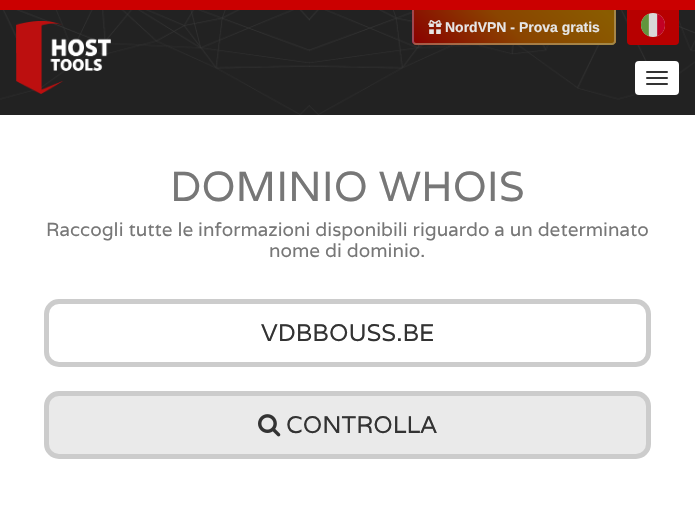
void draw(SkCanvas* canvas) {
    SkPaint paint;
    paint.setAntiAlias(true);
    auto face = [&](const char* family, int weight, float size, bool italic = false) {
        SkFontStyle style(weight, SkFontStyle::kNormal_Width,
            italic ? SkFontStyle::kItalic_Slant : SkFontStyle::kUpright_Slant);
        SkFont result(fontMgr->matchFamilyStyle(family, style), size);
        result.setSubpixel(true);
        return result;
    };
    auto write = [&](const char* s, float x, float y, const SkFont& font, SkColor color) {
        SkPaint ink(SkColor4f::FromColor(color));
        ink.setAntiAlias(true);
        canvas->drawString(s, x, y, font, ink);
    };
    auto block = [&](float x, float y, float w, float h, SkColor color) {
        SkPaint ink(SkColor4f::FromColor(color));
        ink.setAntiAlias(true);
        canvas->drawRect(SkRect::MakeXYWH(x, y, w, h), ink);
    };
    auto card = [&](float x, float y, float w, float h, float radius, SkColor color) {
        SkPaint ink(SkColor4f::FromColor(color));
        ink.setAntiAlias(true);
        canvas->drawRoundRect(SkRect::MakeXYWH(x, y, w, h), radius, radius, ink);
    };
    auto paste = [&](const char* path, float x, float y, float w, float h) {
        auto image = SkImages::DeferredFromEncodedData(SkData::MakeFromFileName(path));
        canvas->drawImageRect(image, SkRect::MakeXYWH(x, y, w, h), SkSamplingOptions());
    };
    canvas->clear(SK_ColorWHITE);
    block(0, 10, 695, 105, SkColorSetRGB(34, 34, 34));
    paste("pic1.png", 0, 10, 695, 105);
    {
        const SkColor colors[] = {SkColorSetRGB(138, 0, 0), SkColorSetRGB(138, 68, 0), SkColorSetRGB(138, 92, 0), SkColorSetRGB(92, 92, 0), SkColorSetRGB(92, 138, 0), SkColorSetRGB(0, 92, 0), SkColorSetRGB(0, 92, 77), SkColorSetRGB(0, 92, 92), SkColorSetRGB(0, 0, 92), SkColorSetRGB(69, 0, 92), SkColorSetRGB(92, 0, 69), SkColorSetRGB(138, 0, 0)};
        const float stops[] = {0, 0.09f, 0.18f, 0.27f, 0.36f, 0.45f, 0.55f, 0.64f, 0.73f, 0.82f, 0.91f, 1};
        const SkPoint ends[] = {{-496, 333}, {124, -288}};
        paint.setShader(SkGradientShader::MakeLinear(ends, colors, stops, 12, SkTileMode::kClamp));
        paint.setAlpha(255);
    }
    canvas->drawRect(SkRect::MakeXYWH(412, 2, 2, 41), paint);
    {
        const SkColor colors[] = {SkColorSetRGB(138, 0, 0), SkColorSetRGB(138, 68, 0), SkColorSetRGB(138, 92, 0), SkColorSetRGB(92, 92, 0), SkColorSetRGB(92, 138, 0), SkColorSetRGB(0, 92, 0), SkColorSetRGB(0, 92, 77), SkColorSetRGB(0, 92, 92), SkColorSetRGB(0, 0, 92), SkColorSetRGB(69, 0, 92), SkColorSetRGB(92, 0, 69), SkColorSetRGB(138, 0, 0)};
        const float stops[] = {0, 0.09f, 0.18f, 0.27f, 0.36f, 0.45f, 0.55f, 0.64f, 0.73f, 0.82f, 0.91f, 1};
        const SkPoint ends[] = {{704, 333}, {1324, -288}};
        paint.setShader(SkGradientShader::MakeLinear(ends, colors, stops, 12, SkTileMode::kClamp));
        paint.setAlpha(255);
    }
    canvas->drawPath(SkPathBuilder().moveTo(414, 2).lineTo(612, 2).cubicTo(614, 2, 616, 4, 616, 6).lineTo(616, 43).lineTo(414, 43).close().detach(), paint);
    canvas->save();
    canvas->clipPath(SkPathBuilder().moveTo(416, 2).lineTo(612, 2).cubicTo(614, 2, 616, 4, 616, 6).lineTo(616, 41).cubicTo(616, 43, 614, 45, 612, 45).lineTo(416, 45).cubicTo(414, 45, 412, 43, 412, 41).lineTo(412, 6).cubicTo(412, 4, 414, 2, 416, 2).close().detach(), true);
    {
        const SkColor colors[] = {SkColorSetRGB(138, 0, 0), SkColorSetRGB(138, 68, 0), SkColorSetRGB(138, 92, 0), SkColorSetRGB(92, 92, 0), SkColorSetRGB(92, 138, 0), SkColorSetRGB(0, 92, 0), SkColorSetRGB(0, 92, 77), SkColorSetRGB(0, 92, 92), SkColorSetRGB(0, 0, 92), SkColorSetRGB(69, 0, 92), SkColorSetRGB(92, 0, 69), SkColorSetRGB(138, 0, 0)};
        const float stops[] = {0, 0.09f, 0.18f, 0.27f, 0.36f, 0.45f, 0.55f, 0.64f, 0.73f, 0.82f, 0.91f, 1};
        const SkPoint ends[] = {{-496, 374}, {124, -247}};
        paint.setShader(SkGradientShader::MakeLinear(ends, colors, stops, 12, SkTileMode::kClamp));
        paint.setAlpha(255);
    }
    canvas->drawRect(SkRect::MakeXYWH(412, 43, 2, 2), paint);
    {
        const SkColor colors[] = {SkColorSetRGB(138, 0, 0), SkColorSetRGB(138, 68, 0), SkColorSetRGB(138, 92, 0), SkColorSetRGB(92, 92, 0), SkColorSetRGB(92, 138, 0), SkColorSetRGB(0, 92, 0), SkColorSetRGB(0, 92, 77), SkColorSetRGB(0, 92, 92), SkColorSetRGB(0, 0, 92), SkColorSetRGB(69, 0, 92), SkColorSetRGB(92, 0, 69), SkColorSetRGB(138, 0, 0)};
        const float stops[] = {0, 0.09f, 0.18f, 0.27f, 0.36f, 0.45f, 0.55f, 0.64f, 0.73f, 0.82f, 0.91f, 1};
        const SkPoint ends[] = {{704, 374}, {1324, -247}};
        paint.setShader(SkGradientShader::MakeLinear(ends, colors, stops, 12, SkTileMode::kClamp));
        paint.setAlpha(255);
    }
    canvas->drawRect(SkRect::MakeXYWH(414, 43, 202, 2), paint);
    canvas->restore();
    paint.setShader(nullptr);
    paint.setColor(SkColorSetARGB(79, 230, 230, 230));
    canvas->drawPath(SkPathBuilder(SkPathFillType::kEvenOdd).moveTo(416, 2).lineTo(612, 2).cubicTo(614, 2, 616, 4, 616, 6).lineTo(616, 41).cubicTo(616, 43, 614, 45, 612, 45).lineTo(416, 45).cubicTo(414, 45, 412, 43, 412, 41).lineTo(412, 6).cubicTo(412, 4, 414, 2, 416, 2).close().moveTo(416, 2).lineTo(612, 2).cubicTo(613, 2, 614, 4, 614, 6).lineTo(614, 41).cubicTo(614, 42, 613, 43, 612, 43).lineTo(416, 43).cubicTo(415, 43, 414, 42, 414, 41).lineTo(414, 6).cubicTo(414, 4, 415, 2, 416, 2).close().detach(), paint);
    card(627, 1, 52, 44, 4, SkColorSetRGB(183, 0, 0));
    block(0, 0, 695, 10, SkColorSetRGB(203, 0, 0));
    paste("pic2.png", 16, 21, 95, 73);
    paste("pic3.png", 428, 20, 14, 14);
    auto kFont1 = face("Liberation Sans", 700, 14);
    write("NordVPN - Prova gratis", 445, 32, kFont1, SkColorSetRGB(230, 230, 230));
    paste("pic4.png", 641, 13, 24, 24);
    card(635, 61, 44, 34, 4, SK_ColorWHITE);
    card(646, 71, 22, 2, 1, SkColorSetRGB(51, 51, 51));
    card(646, 77, 22, 2, 1, SkColorSetRGB(51, 51, 51));
    card(646, 83, 22, 2, 1, SkColorSetRGB(51, 51, 51));
    auto kFont2 = face("Varela", 400, 42);
    write("DOMINIO WHOIS", 170, 201, kFont2, SkColorSetRGB(119, 119, 119));
    auto kFont3 = face("Varela", 400, 18.9f);
    write("Raccogli tutte le informazioni disponibili riguardo a un determinato", 46, 236, kFont3, SkColorSetRGB(119, 119, 119));
    write("nome di dominio.", 269, 257, kFont3, SkColorSetRGB(119, 119, 119));
    paint.setStyle(SkPaint::kStroke_Style);
    paint.setStrokeWidth(5);
    paint.setColor(SkColorSetRGB(204, 204, 204));
    canvas->drawRoundRect(SkRect::MakeXYWH(46.5f, 301.5f, 602, 63), 12.5f, 12.5f, paint);
    auto kFont4 = face("Varela", 400, 24);
    write("VDBBOUSS.BE", 261, 341, kFont4, SkColorSetRGB(51, 51, 51));
    paint.setStyle(SkPaint::kFill_Style);
    paint.setColor(SkColorSetRGB(234, 234, 234));
    canvas->drawRoundRect(SkRect::MakeXYWH(46.5f, 393.5f, 602, 63), 12.5f, 12.5f, paint);
    paint.setStyle(SkPaint::kStroke_Style);
    paint.setColor(SkColorSetRGB(204, 204, 204));
    canvas->drawRoundRect(SkRect::MakeXYWH(46.5f, 393.5f, 602, 63), 12.5f, 12.5f, paint);
    paste("pic5.png", 258, 414, 23, 23);
    write("CONTROLLA", 286, 433, kFont4, SkColorSetRGB(51, 51, 51));
}
